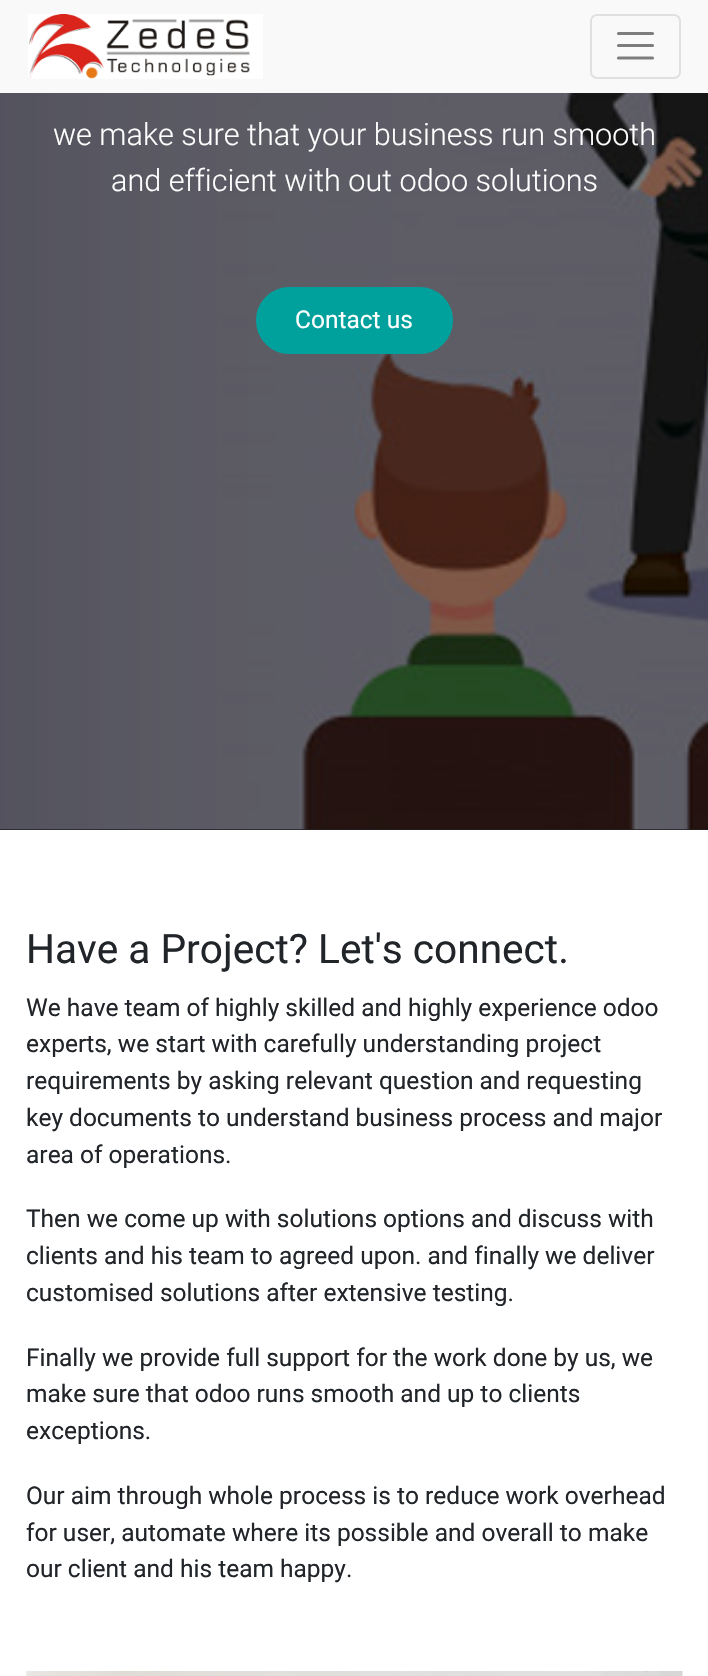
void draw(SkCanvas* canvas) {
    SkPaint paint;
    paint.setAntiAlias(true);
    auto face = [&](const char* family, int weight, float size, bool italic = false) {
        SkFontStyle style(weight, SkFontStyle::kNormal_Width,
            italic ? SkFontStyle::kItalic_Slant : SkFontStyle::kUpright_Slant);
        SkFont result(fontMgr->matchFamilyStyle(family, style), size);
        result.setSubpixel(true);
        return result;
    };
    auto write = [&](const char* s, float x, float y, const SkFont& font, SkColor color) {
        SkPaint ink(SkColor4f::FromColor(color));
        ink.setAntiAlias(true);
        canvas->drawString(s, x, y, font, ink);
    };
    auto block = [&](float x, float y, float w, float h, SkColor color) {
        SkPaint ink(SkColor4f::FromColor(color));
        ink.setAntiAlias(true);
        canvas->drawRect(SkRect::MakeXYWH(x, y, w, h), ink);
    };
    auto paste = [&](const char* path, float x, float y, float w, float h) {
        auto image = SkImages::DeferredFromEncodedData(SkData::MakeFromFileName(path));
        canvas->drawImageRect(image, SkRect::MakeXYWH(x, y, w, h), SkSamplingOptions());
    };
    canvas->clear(SK_ColorWHITE);
    block(0, 0, 708, 93, SkColorSetRGB(249, 249, 249));
    paste("pic1.png", 28, 14, 235, 65);
    paint.setStyle(SkPaint::kStroke_Style);
    paint.setStrokeWidth(2);
    paint.setColor(SkColorSetRGB(224, 224, 224));
    canvas->drawRoundRect(SkRect::MakeXYWH(591, 15, 89, 63), 6, 6, paint);
    paint.setStrokeWidth(3.1f);
    paint.setStrokeCap(SkPaint::kRound_Cap);
    paint.setColor(SkColorSetRGB(125, 125, 125));
    canvas->drawPath(SkPathBuilder().moveTo(618.5f, 33.5f).lineTo(652.5f, 33.5f).moveTo(618.5f, 45.5f).lineTo(652.5f, 45.5f).moveTo(618.5f, 58).lineTo(652.5f, 58).detach(), paint);
    block(0, 829, 708, 1, SkColorSetRGB(32, 32, 32));
    paste("pic2.png", 0, 93, 708, 737);
    auto kFont1 = face("Roboto", 300, 30.6f);
    write("we make sure that your business run smooth", 53, 145, kFont1, SK_ColorWHITE);
    write("and efficient with out odoo solutions", 111, 191, kFont1, SK_ColorWHITE);
    paint.setStyle(SkPaint::kFill_Style);
    paint.setColor(SkColorSetRGB(0, 160, 157));
    canvas->drawRoundRect(SkRect::MakeXYWH(257, 288, 195, 65), 32.5f, 32.5f, paint);
    paint.setStyle(SkPaint::kStroke_Style);
    paint.setStrokeWidth(2);
    paint.setStrokeCap(SkPaint::kButt_Cap);
    canvas->drawRoundRect(SkRect::MakeXYWH(257, 288, 195, 65), 32.5f, 32.5f, paint);
    auto kFont2 = face("Roboto", 400, 24.5f);
    write("Contact us", 295, 328, kFont2, SK_ColorWHITE);
    auto kFont3 = face("Roboto", 400, 40.6f);
    write("Have a Project? Let's connect.", 26, 963, kFont3, SkColorSetRGB(33, 37, 41));
    write("We have team of highly skilled and highly experience odoo", 26, 1016, kFont2, SkColorSetRGB(33, 37, 41));
    write("experts, we start with carefully understanding project", 26, 1052, kFont2, SkColorSetRGB(33, 37, 41));
    write("requirements by asking relevant question and requesting", 26, 1089, kFont2, SkColorSetRGB(33, 37, 41));
    write("key documents to understand business process and major", 26, 1126, kFont2, SkColorSetRGB(33, 37, 41));
    write("area of operations.", 26, 1163, kFont2, SkColorSetRGB(33, 37, 41));
    write("Then we come up with solutions options and discuss with", 26, 1227, kFont2, SkColorSetRGB(33, 37, 41));
    write("clients and his team to agreed upon. and finally we deliver", 26, 1264, kFont2, SkColorSetRGB(33, 37, 41));
    write("customised solutions after extensive testing.", 26, 1301, kFont2, SkColorSetRGB(33, 37, 41));
    write("Finally we provide full support for the work done by us, we", 26, 1366, kFont2, SkColorSetRGB(33, 37, 41));
    write("make sure that odoo runs smooth and up to clients", 26, 1402, kFont2, SkColorSetRGB(33, 37, 41));
    write("exceptions.", 26, 1439, kFont2, SkColorSetRGB(33, 37, 41));
    write("Our aim through whole process is to reduce work overhead", 26, 1504, kFont2, SkColorSetRGB(33, 37, 41));
    write("for user, automate where its possible and overall to make", 26, 1541, kFont2, SkColorSetRGB(33, 37, 41));
    write("our client and his team happy.", 26, 1577, kFont2, SkColorSetRGB(33, 37, 41));
    paste("pic3.png", 26, 1671, 657, 5);
}
